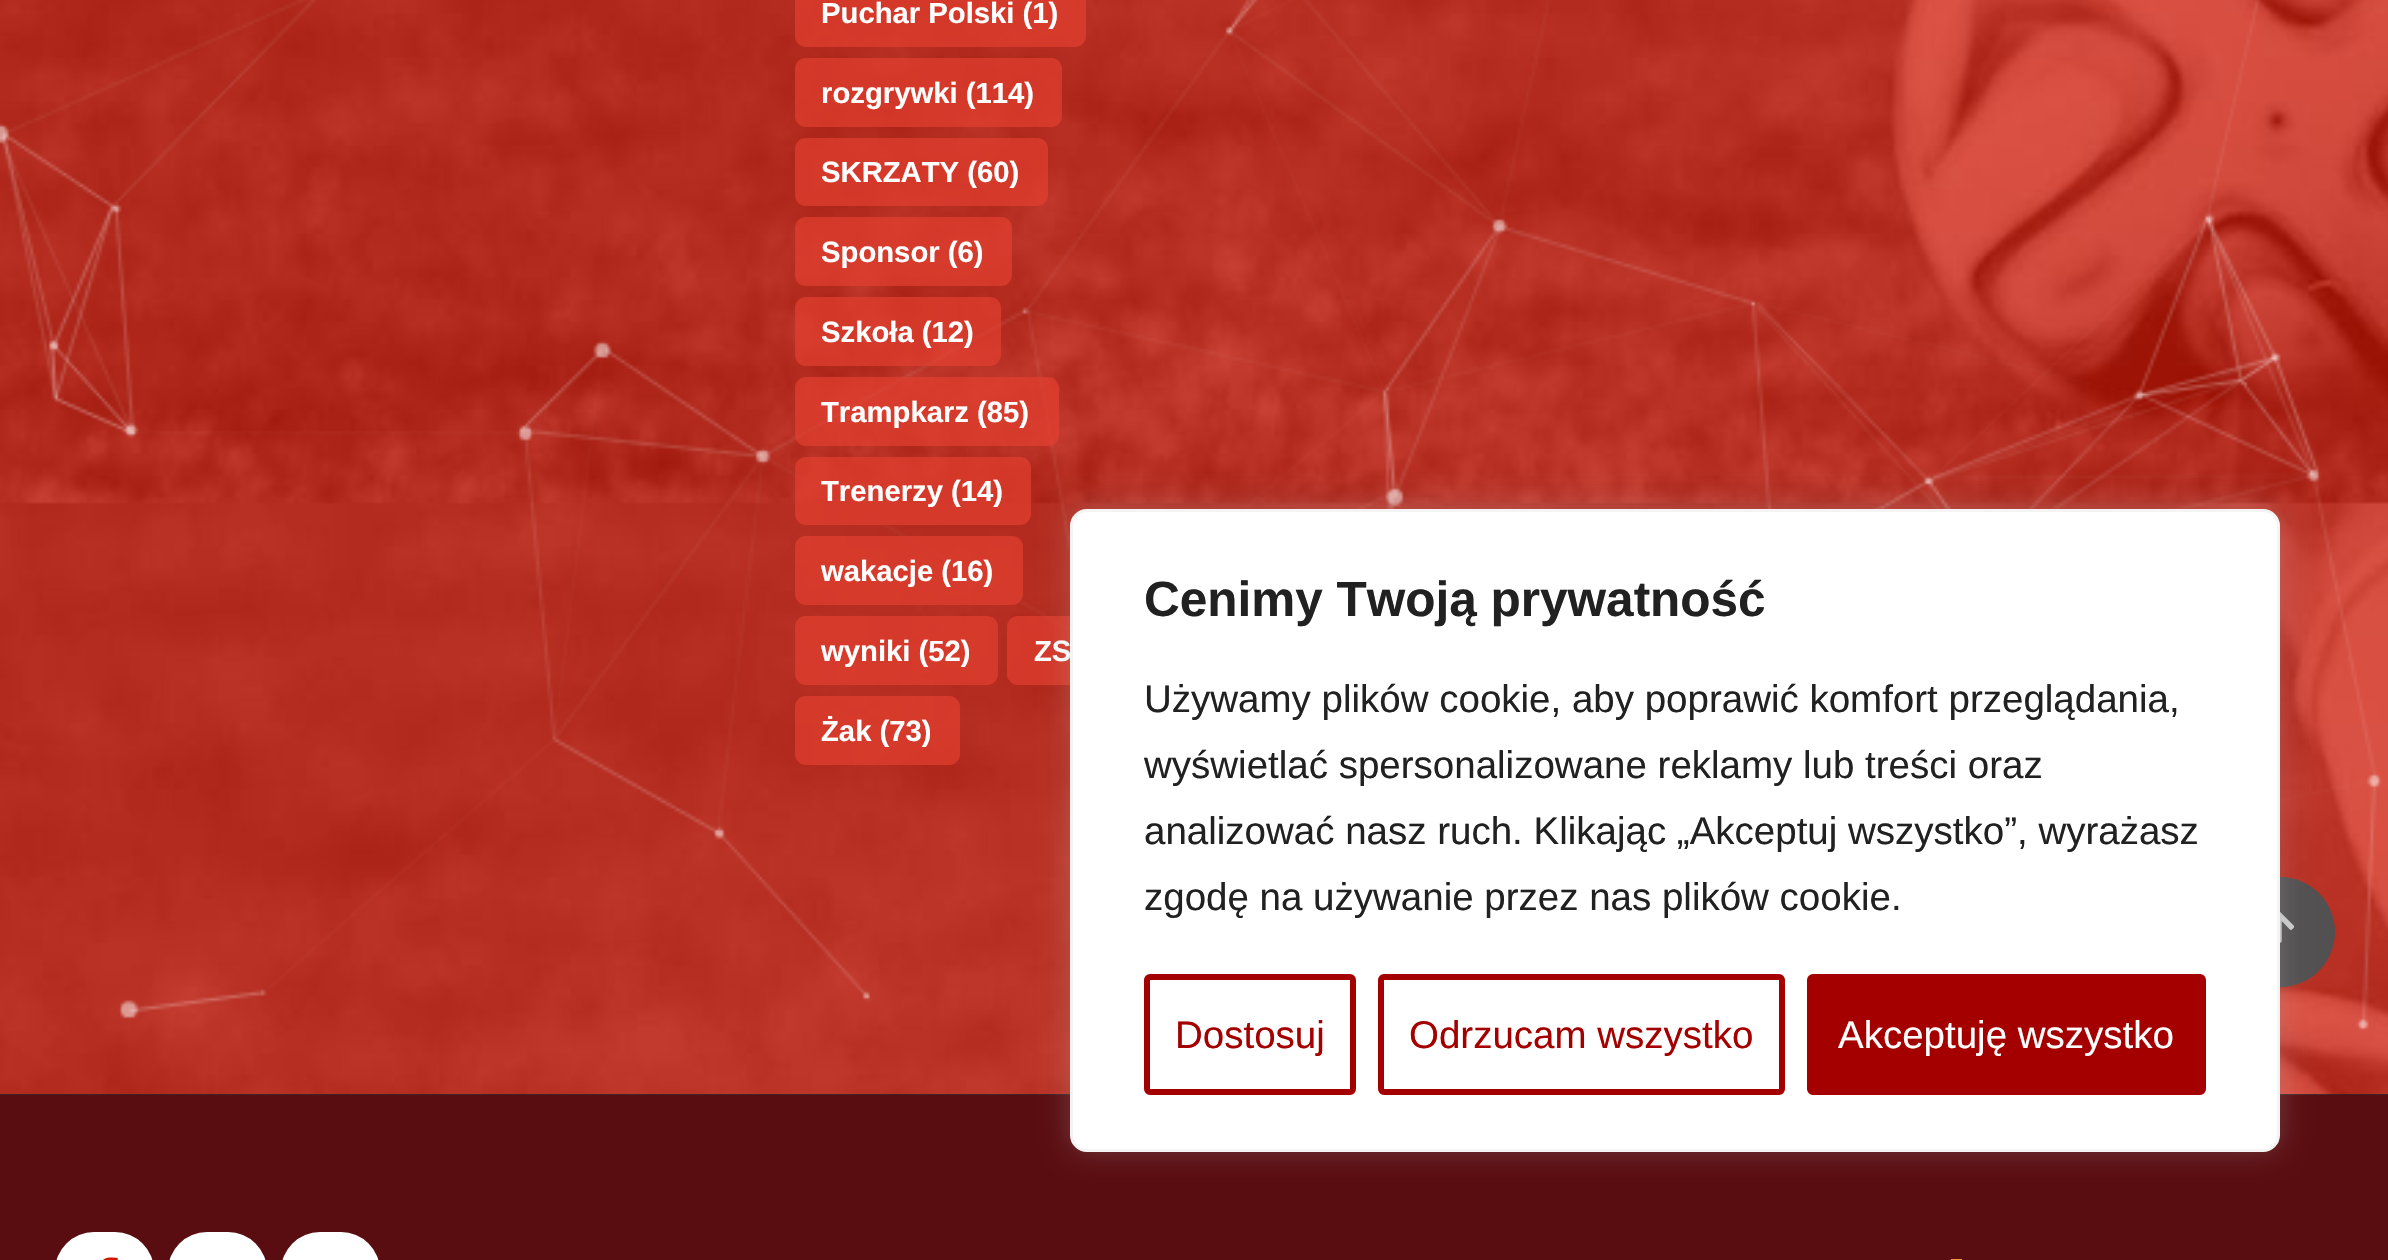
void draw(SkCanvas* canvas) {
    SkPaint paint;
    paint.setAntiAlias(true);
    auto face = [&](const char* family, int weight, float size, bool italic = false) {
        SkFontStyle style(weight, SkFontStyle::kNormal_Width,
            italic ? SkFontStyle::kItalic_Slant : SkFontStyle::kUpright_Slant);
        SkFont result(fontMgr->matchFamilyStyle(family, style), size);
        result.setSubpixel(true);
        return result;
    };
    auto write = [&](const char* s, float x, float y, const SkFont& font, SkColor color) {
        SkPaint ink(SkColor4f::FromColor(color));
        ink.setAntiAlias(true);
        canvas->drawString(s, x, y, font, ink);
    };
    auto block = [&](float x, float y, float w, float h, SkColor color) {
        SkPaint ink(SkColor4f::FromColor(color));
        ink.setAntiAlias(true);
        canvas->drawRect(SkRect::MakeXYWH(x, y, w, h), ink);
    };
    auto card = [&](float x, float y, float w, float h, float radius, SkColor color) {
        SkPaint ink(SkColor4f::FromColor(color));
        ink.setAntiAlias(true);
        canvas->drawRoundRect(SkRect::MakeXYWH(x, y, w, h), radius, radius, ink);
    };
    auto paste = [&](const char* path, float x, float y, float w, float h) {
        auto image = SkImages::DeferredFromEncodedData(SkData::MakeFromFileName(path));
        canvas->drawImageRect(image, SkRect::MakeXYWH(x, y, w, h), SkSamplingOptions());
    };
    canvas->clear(SkColorSetRGB(19, 31, 39));
    paste("pic1.png", 0, 0, 2388, 1095);
    paste("pic2.png", 0, 0, 2382, 1030);
    card(795, -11, 291, 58, 11, SkColorSetARGB(176, 226, 63, 46));
    auto kFont1 = face("Liberation Sans", 700, 29.25f);
    write("Puchar Polski (1)", 821, 23, kFont1, SK_ColorWHITE);
    card(795, 58, 267, 69, 11, SkColorSetARGB(176, 226, 63, 46));
    write("rozgrywki (114)", 821, 103, kFont1, SK_ColorWHITE);
    card(795, 138, 253, 68, 11, SkColorSetARGB(176, 226, 63, 46));
    write("SKRZATY (60)", 821, 182, kFont1, SK_ColorWHITE);
    card(795, 217, 217, 69, 11, SkColorSetARGB(176, 226, 63, 46));
    write("Sponsor (6)", 821, 262, kFont1, SK_ColorWHITE);
    card(795, 297, 206, 69, 11, SkColorSetARGB(176, 226, 63, 46));
    write("Szkoła (12)", 821, 342, kFont1, SK_ColorWHITE);
    card(795, 377, 264, 69, 11, SkColorSetARGB(176, 226, 63, 46));
    write("Trampkarz (85)", 821, 422, kFont1, SK_ColorWHITE);
    card(795, 457, 236, 68, 11, SkColorSetARGB(176, 226, 63, 46));
    write("Trenerzy (14)", 821, 501, kFont1, SK_ColorWHITE);
    card(795, 536, 228, 69, 11, SkColorSetARGB(176, 226, 63, 46));
    write("wakacje (16)", 821, 581, kFont1, SK_ColorWHITE);
    card(795, 616, 203, 69, 11, SkColorSetARGB(176, 226, 63, 46));
    write("wyniki (52)", 821, 661, kFont1, SK_ColorWHITE);
    card(1007, 616, 159, 69, 11, SkColorSetARGB(176, 226, 63, 46));
    write("ZS", 1034, 661, kFont1, SK_ColorWHITE);
    card(795, 696, 165, 69, 11, SkColorSetARGB(176, 226, 63, 46));
    write("Żak (73)", 821, 741, kFont1, SK_ColorWHITE);
    block(0, 1095, 2388, 165, SkColorSetRGB(90, 13, 17));
    card(55, 1232, 99, 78, 49.5f, SK_ColorWHITE);
    paste("pic3.png", 103, 1257, 15, 3);
    card(168, 1232, 99, 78, 49.5f, SK_ColorWHITE);
    card(281, 1232, 99, 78, 49.5f, SK_ColorWHITE);
    block(1951, 1259, 11, 1, SkColorSetRGB(251, 155, 62));
    paint.setColor(SkColorSetRGB(82, 79, 81));
    canvas->drawCircle(2280, 932, 55, paint);
    paint.setColor(SkColorSetARGB(102, 82, 79, 81));
    canvas->drawCircle(2280, 932, 55, paint);
    paste("pic4.png", 2280, 912, 15, 31);
    paint.setColor(SkColorSetARGB(77, 172, 171, 171));
    paint.setMaskFilter(SkMaskFilter::MakeBlur(kNormal_SkBlurStyle, 14));
    canvas->drawRoundRect(SkRect::MakeXYWH(1070, 506, 1210, 644), 17, 17, paint);
    paint.setMaskFilter(nullptr);
    paint.setColor(SK_ColorWHITE);
    canvas->drawRoundRect(SkRect::MakeXYWH(1071.5f, 510.5f, 1207, 640), 15.5f, 15.5f, paint);
    paint.setStyle(SkPaint::kStroke_Style);
    paint.setStrokeWidth(3);
    paint.setColor(SkColorSetRGB(244, 244, 244));
    canvas->drawRoundRect(SkRect::MakeXYWH(1071.5f, 510.5f, 1207, 640), 15.5f, 15.5f, paint);
    auto kFont2 = face("Liberation Sans", 700, 49.5f);
    write("Cenimy Twoją prywatność", 1144, 616, kFont2, SkColorSetRGB(33, 33, 33));
    auto kFont3 = face("Liberation Sans", 400, 38.5f);
    write("Używamy plików cookie, aby poprawić komfort przeglądania,", 1144, 712, kFont3, SkColorSetRGB(33, 33, 33));
    write("wyświetlać spersonalizowane reklamy lub treści oraz", 1144, 778, kFont3, SkColorSetRGB(33, 33, 33));
    write("analizować nasz ruch. Klikając „Akceptuj wszystko”, wyrażasz", 1144, 844, kFont3, SkColorSetRGB(33, 33, 33));
    write("zgodę na używanie przez nas plików cookie.", 1144, 910, kFont3, SkColorSetRGB(33, 33, 33));
    paint.setStrokeWidth(6);
    paint.setColor(SkColorSetRGB(165, 0, 0));
    canvas->drawRoundRect(SkRect::MakeXYWH(1147, 977, 206, 115), 3, 3, paint);
    write("Dostosuj", 1175, 1048, kFont3, SkColorSetRGB(165, 0, 0));
    canvas->drawRoundRect(SkRect::MakeXYWH(1381, 977, 401, 115), 3, 3, paint);
    write("Odrzucam wszystko", 1409, 1048, kFont3, SkColorSetRGB(165, 0, 0));
    paint.setStyle(SkPaint::kFill_Style);
    canvas->drawRoundRect(SkRect::MakeXYWH(1810, 977, 393, 115), 3, 3, paint);
    paint.setStyle(SkPaint::kStroke_Style);
    canvas->drawRoundRect(SkRect::MakeXYWH(1810, 977, 393, 115), 3, 3, paint);
    write("Akceptuję wszystko", 1838, 1048, kFont3, SK_ColorWHITE);
}
